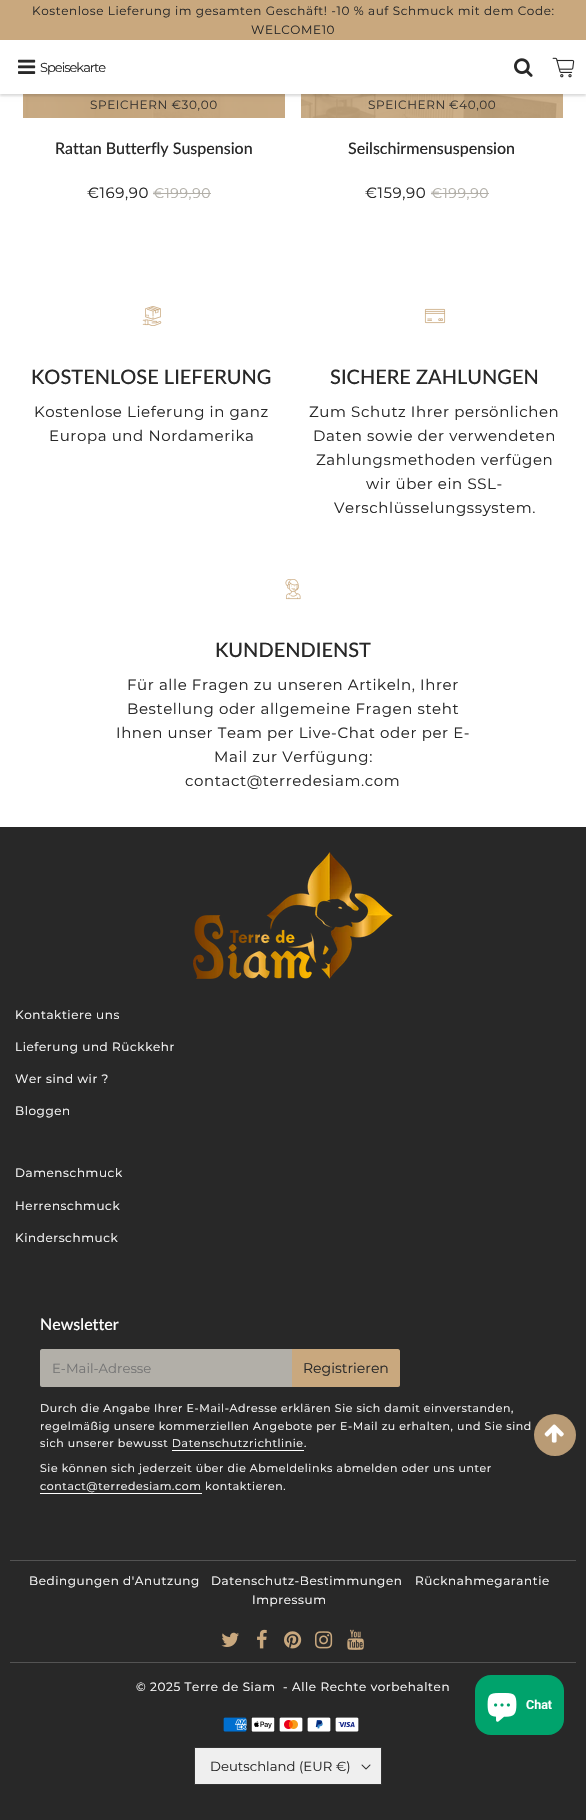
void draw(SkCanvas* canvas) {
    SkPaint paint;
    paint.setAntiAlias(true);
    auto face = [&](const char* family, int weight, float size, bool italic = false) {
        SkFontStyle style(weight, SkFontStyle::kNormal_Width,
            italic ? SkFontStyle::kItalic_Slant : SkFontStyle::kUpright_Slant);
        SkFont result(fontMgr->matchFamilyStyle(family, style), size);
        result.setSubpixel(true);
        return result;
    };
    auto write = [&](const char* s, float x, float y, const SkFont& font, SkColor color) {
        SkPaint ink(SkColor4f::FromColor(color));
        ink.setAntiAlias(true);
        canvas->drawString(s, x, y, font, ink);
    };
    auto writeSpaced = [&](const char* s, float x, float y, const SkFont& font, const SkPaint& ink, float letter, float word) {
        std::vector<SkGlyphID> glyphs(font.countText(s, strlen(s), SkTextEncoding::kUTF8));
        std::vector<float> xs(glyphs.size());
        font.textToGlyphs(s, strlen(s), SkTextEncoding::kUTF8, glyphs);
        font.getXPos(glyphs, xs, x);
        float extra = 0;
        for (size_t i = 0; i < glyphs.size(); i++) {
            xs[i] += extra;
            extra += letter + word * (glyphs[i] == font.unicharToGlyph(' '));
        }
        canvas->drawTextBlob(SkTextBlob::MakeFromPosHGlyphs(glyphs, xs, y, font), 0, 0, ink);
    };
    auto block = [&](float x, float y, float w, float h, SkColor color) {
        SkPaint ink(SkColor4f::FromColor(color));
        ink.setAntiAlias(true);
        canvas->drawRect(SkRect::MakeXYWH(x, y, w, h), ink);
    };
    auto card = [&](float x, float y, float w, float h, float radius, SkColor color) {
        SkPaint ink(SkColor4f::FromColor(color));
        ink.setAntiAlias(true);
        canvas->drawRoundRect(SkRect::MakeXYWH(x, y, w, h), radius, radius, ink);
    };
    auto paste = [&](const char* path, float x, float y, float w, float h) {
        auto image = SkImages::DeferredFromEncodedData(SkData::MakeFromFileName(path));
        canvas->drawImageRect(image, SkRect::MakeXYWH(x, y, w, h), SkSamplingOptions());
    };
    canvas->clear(SK_ColorWHITE);
    paste("pic4.png", 23, 94, 262, 24);
    block(23, 94, 262, 24, SkColorSetARGB(230, 201, 168, 126));
    paste("pic5.png", 301, 94, 262, 24);
    block(301, 94, 262, 24, SkColorSetARGB(230, 201, 168, 126));
    paint.setColor(SkColorSetARGB(13, 0, 0, 0));
    paint.setMaskFilter(SkMaskFilter::MakeBlur(kNormal_SkBlurStyle, 2));
    canvas->drawRect(SkRect::MakeXYWH(0, 2, 586, 94), paint);
    paint.setMaskFilter(nullptr);
    block(0, 40, 586, 54, SK_ColorWHITE);
    canvas->save();
    canvas->clipRect(SkRect::MakeXYWH(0, 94, 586, 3));
    paint.setColor(SkColorSetARGB(26, 0, 0, 0));
    paint.setMaskFilter(SkMaskFilter::MakeBlur(kNormal_SkBlurStyle, 1));
    canvas->drawRect(SkRect::MakeXYWH(0, 42, 586, 54), paint);
    paint.setMaskFilter(nullptr);
    canvas->restore();
    block(0, 0, 586, 40, SkColorSetRGB(201, 168, 126));
    auto kFont1 = face("Montserrat", 400, 12);
    paint.setColor(SkColorSetRGB(40, 40, 40));
    writeSpaced("Kostenlose Lieferung im gesamten Geschäft! -10 % auf Schmuck mit dem Code:", 32, 15, kFont1, paint, 0.6f, 0);
    writeSpaced("WELCOME10", 251, 34, kFont1, paint, 0.6f, 0);
    paste("pic1.png", 18, 59, 18, 15);
    auto kFont2 = face("Montserrat", 400, 13);
    writeSpaced("Speisekarte", 40, 72, kFont2, paint, -1, 0);
    paste("pic2.png", 514, 58, 19, 19);
    paste("pic3.png", 552, 57, 23, 21);
    paint.setColor(SkColorSetRGB(56, 52, 48));
    writeSpaced("SPEICHERN €30,00", 90, 109, kFont1, paint, 0.6f, 0);
    auto kFont3 = face("Lato", 500, 16);
    write("Rattan Butterfly Suspension", 55, 154, kFont3, SkColorSetRGB(40, 40, 40));
    auto kFont4 = face("Montserrat", 400, 15);
    paint.setColor(SkColorSetRGB(40, 40, 40));
    writeSpaced("€169,90", 87, 198, kFont4, paint, 0.6f, 0);
    auto kFont5 = face("Montserrat", 400, 14);
    paint.setColor(SkColorSetRGB(178, 175, 168));
    writeSpaced("€199,90", 153, 198, kFont5, paint, 0.6f, 0);
    block(153, 193, 58, 1, SkColorSetRGB(178, 175, 168));
    paint.setColor(SkColorSetRGB(56, 52, 48));
    writeSpaced("SPEICHERN", 368, 109, kFont1, paint, 0.6f, 0);
    writeSpaced("€40,00", 449, 109, kFont1, paint, 0.6f, 0);
    write("Seilschirmensuspension", 348, 154, kFont3, SkColorSetRGB(40, 40, 40));
    paint.setColor(SkColorSetRGB(40, 40, 40));
    writeSpaced("€159,90", 365, 198, kFont4, paint, 0.6f, 0);
    paint.setColor(SkColorSetRGB(178, 175, 168));
    writeSpaced("€199,90", 431, 198, kFont5, paint, 0.6f, 0);
    block(431, 193, 58, 1, SkColorSetRGB(178, 175, 168));
    paste("pic6.png", 142, 306, 20, 20);
    auto kFont6 = face("Lato", 500, 20);
    write("KOSTENLOSE LIEFERUNG", 31, 384, kFont6, SkColorSetRGB(40, 40, 40));
    paint.setColor(SkColorSetRGB(40, 40, 40));
    writeSpaced("Kostenlose Lieferung in ganz", 34, 417, kFont4, paint, 0.6f, 0);
    writeSpaced("Europa und Nordamerika", 49, 441, kFont4, paint, 0.6f, 0);
    paste("pic7.png", 424, 308, 22, 16);
    write("SICHERE ZAHLUNGEN", 330, 384, kFont6, SkColorSetRGB(40, 40, 40));
    writeSpaced("Zum Schutz Ihrer persönlichen", 309, 417, kFont4, paint, 0.6f, 0);
    writeSpaced("Daten sowie der verwendeten", 313, 441, kFont4, paint, 0.6f, 0);
    writeSpaced("Zahlungsmethoden verfügen", 316, 465, kFont4, paint, 0.6f, 0);
    writeSpaced("wir über ein SSL-", 366, 489, kFont4, paint, 0.6f, 0);
    writeSpaced("Verschlüsselungssystem.", 334, 513, kFont4, paint, 0.6f, 0);
    paste("pic8.png", 285, 579, 16, 21);
    write("KUNDENDIENST", 215, 657, kFont6, SkColorSetRGB(40, 40, 40));
    writeSpaced("Für alle Fragen zu unseren Artikeln, Ihrer", 127, 690, kFont4, paint, 0.6f, 0);
    writeSpaced("Bestellung oder allgemeine Fragen steht", 127, 714, kFont4, paint, 0.6f, 0);
    writeSpaced("Ihnen unser Team per Live-Chat oder per E-", 116, 738, kFont4, paint, 0.6f, 0);
    writeSpaced("Mail zur Verfügung:", 214, 762, kFont4, paint, 0.6f, 0);
    writeSpaced("contact@terredesiam.com", 185, 786, kFont4, paint, 0.6f, 0);
    block(0, 827, 586, 993, SkColorSetRGB(40, 40, 40));
    paste("pic9.png", 193, 852, 200, 127);
    paint.setColor(SK_ColorWHITE);
    writeSpaced("Kontaktiere uns", 15, 1019, kFont1, paint, 0.6f, 0);
    writeSpaced("Lieferung und Rückkehr", 15, 1051, kFont1, paint, 0.6f, 0);
    writeSpaced("Wer sind wir ?", 15, 1083, kFont1, paint, 0.6f, 0);
    writeSpaced("Bloggen", 15, 1115, kFont1, paint, 0.6f, 0);
    writeSpaced("Damenschmuck", 15, 1177, kFont1, paint, 0.6f, 0);
    writeSpaced("Herrenschmuck", 15, 1210, kFont1, paint, 0.6f, 0);
    writeSpaced("Kinderschmuck", 15, 1242, kFont1, paint, 0.6f, 0);
    write("Newsletter", 40, 1330, kFont3, SK_ColorWHITE);
    paint.setColor(SkColorSetRGB(178, 175, 168));
    canvas->drawPath(SkPathBuilder().moveTo(42, 1349).lineTo(292, 1349).lineTo(292, 1387).lineTo(42, 1387).cubicTo(41, 1387, 40, 1386, 40, 1385).lineTo(40, 1351).cubicTo(40, 1350, 41, 1349, 42, 1349).close().detach(), paint);
    auto kFont7 = face("Montserrat", 400, 13.25f);
    write("E-Mail-Adresse", 52, 1373, kFont7, SkColorSetRGB(117, 117, 117));
    paint.setColor(SkColorSetRGB(201, 168, 126));
    canvas->drawPath(SkPathBuilder().moveTo(292, 1349).lineTo(398, 1349).cubicTo(399, 1349, 400, 1350, 400, 1351).lineTo(400, 1385).cubicTo(400, 1386, 399, 1387, 398, 1387).lineTo(292, 1387).close().detach(), paint);
    write("Registrieren", 303, 1373, kFont5, SkColorSetRGB(40, 40, 40));
    auto kFont8 = face("Montserrat", 400, 11);
    paint.setColor(SK_ColorWHITE);
    writeSpaced("Durch die Angabe Ihrer E-Mail-Adresse erklären Sie sich damit einverstanden,", 40, 1412, kFont8, paint, 0.6f, 0);
    writeSpaced("regelmäßig unsere kommerziellen Angebote per E-Mail zu erhalten, und Sie sind", 40, 1430, kFont8, paint, 0.6f, 0);
    writeSpaced("sich unserer bewusst Datenschutzrichtlinie", 40, 1447, kFont8, paint, 0.6f, 0);
    writeSpaced(".", 304, 1447, kFont8, paint, 0.6f, 0);
    block(172, 1450, 132, 1, SK_ColorWHITE);
    writeSpaced("Sie können sich jederzeit über die Abmeldelinks abmelden oder uns unter", 40, 1472, kFont8, paint, 0.6f, 0);
    writeSpaced("contact@terredesiam.com", 40, 1490, kFont8, paint, 0.6f, 0);
    block(40, 1493, 162, 1, SK_ColorWHITE);
    writeSpaced("kontaktieren.", 205, 1490, kFont8, paint, 0.6f, 0);
    block(10, 1560, 566, 1, SkColorSetRGB(83, 83, 83));
    writeSpaced("Bedingungen d'Anutzung", 29, 1585, kFont1, paint, 0.6f, 0);
    writeSpaced("Datenschutz-Bestimmungen", 211, 1585, kFont1, paint, 0.6f, 0);
    writeSpaced("Rücknahmegarantie", 415, 1585, kFont1, paint, 0.6f, 0);
    writeSpaced("Impressum", 252, 1604, kFont1, paint, 0.6f, 0);
    paste("pic10.png", 221, 1632, 18, 15);
    paste("pic11.png", 257, 1629, 10, 20);
    paste("pic12.png", 284, 1631, 18, 18);
    paste("pic13.png", 315, 1631, 18, 18);
    paste("pic14.png", 347, 1629, 17, 21);
    block(10, 1662, 566, 1, SkColorSetRGB(83, 83, 83));
    writeSpaced("© 2025 Terre de Siam", 136, 1691, kFont1, paint, 0.6f, 0);
    writeSpaced("- Alle Rechte vorbehalten", 283, 1691, kFont1, paint, 0.6f, 0);
    paste("pic15.png", 223, 1717, 24, 15);
    paste("pic16.png", 251, 1717, 24, 15);
    paste("pic17.png", 279, 1717, 24, 15);
    paste("pic18.png", 307, 1717, 24, 15);
    paste("pic19.png", 335, 1717, 24, 15);
    paint.setColor(SkColorSetRGB(239, 239, 239));
    canvas->drawRect(SkRect::MakeXYWH(194.5f, 1747.5f, 187, 37), paint);
    paint.setStyle(SkPaint::kStroke_Style);
    paint.setStrokeWidth(1);
    paint.setColor(SkColorSetRGB(51, 51, 51));
    canvas->drawRect(SkRect::MakeXYWH(194.5f, 1747.5f, 187, 37), paint);
    write("Deutschland (EUR €)", 210, 1771, kFont7, SkColorSetRGB(40, 40, 40));
    paste("pic20.png", 361, 1764, 10, 6);
    paint.setStyle(SkPaint::kFill_Style);
    paint.setColor(SkColorSetRGB(185, 155, 117));
    canvas->drawCircle(555, 1435, 21, paint);
    paste("pic21.png", 544, 1424, 20, 19);
    card(475, 1675, 89, 60, 16, SkColorSetRGB(0, 163, 108));
    paste("pic22.png", 487, 1693, 30, 29);
    auto kFont9 = face("Roboto", 600, 12.5f);
    write("Chat", 526, 1709, kFont9, SK_ColorWHITE);
}
